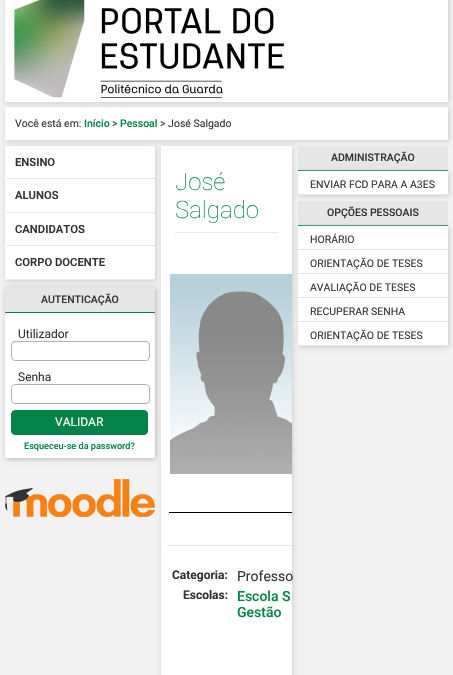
void draw(SkCanvas* canvas) {
    SkPaint paint;
    paint.setAntiAlias(true);
    auto face = [&](const char* family, int weight, float size, bool italic = false) {
        SkFontStyle style(weight, SkFontStyle::kNormal_Width,
            italic ? SkFontStyle::kItalic_Slant : SkFontStyle::kUpright_Slant);
        SkFont result(fontMgr->matchFamilyStyle(family, style), size);
        result.setSubpixel(true);
        return result;
    };
    auto write = [&](const char* s, float x, float y, const SkFont& font, SkColor color) {
        SkPaint ink(SkColor4f::FromColor(color));
        ink.setAntiAlias(true);
        canvas->drawString(s, x, y, font, ink);
    };
    auto block = [&](float x, float y, float w, float h, SkColor color) {
        SkPaint ink(SkColor4f::FromColor(color));
        ink.setAntiAlias(true);
        canvas->drawRect(SkRect::MakeXYWH(x, y, w, h), ink);
    };
    auto paste = [&](const char* path, float x, float y, float w, float h) {
        auto image = SkImages::DeferredFromEncodedData(SkData::MakeFromFileName(path));
        canvas->drawImageRect(image, SkRect::MakeXYWH(x, y, w, h), SkSamplingOptions());
    };
    canvas->clear(SkColorSetRGB(242, 242, 242));
    paint.setColor(SkColorSetRGB(204, 204, 204));
    paint.setMaskFilter(SkMaskFilter::MakeBlur(kNormal_SkBlurStyle, 2.5f));
    canvas->drawRect(SkRect::MakeXYWH(6, 108, 443, 33), paint);
    paint.setMaskFilter(nullptr);
    block(5, 107, 443, 33, SK_ColorWHITE);
    paint.setMaskFilter(SkMaskFilter::MakeBlur(kNormal_SkBlurStyle, 2.5f));
    canvas->drawRect(SkRect::MakeXYWH(6, -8, 443, 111), paint);
    paint.setMaskFilter(nullptr);
    block(5, 0, 443, 102, SK_ColorWHITE);
    paste("pic1.png", 14, 0, 270, 98);
    auto kFont1 = face("Roboto", 400, 10.5f);
    write("Você está em:", 15, 127, kFont1, SkColorSetRGB(51, 51, 51));
    auto kFont2 = face("Roboto", 500, 10.5f);
    write("Início", 84, 127, kFont2, SkColorSetRGB(3, 131, 72));
    write(">", 112, 127, kFont1, SkColorSetRGB(51, 51, 51));
    write("Pessoal", 120, 127, kFont2, SkColorSetRGB(3, 131, 72));
    write("> José Salgado", 160, 127, kFont1, SkColorSetRGB(51, 51, 51));
    paint.setMaskFilter(SkMaskFilter::MakeBlur(kNormal_SkBlurStyle, 2.5f));
    canvas->drawRect(SkRect::MakeXYWH(6, 147, 150, 134), paint);
    paint.setMaskFilter(nullptr);
    block(5, 146, 150, 134, SK_ColorWHITE);
    paint.setColor(SkColorSetRGB(230, 230, 230));
    canvas->drawPath(SkPathBuilder().moveTo(155, 179).lineTo(5, 179).lineTo(7, 178).lineTo(155, 178).close().detach(), paint);
    paint.setColor(SK_ColorWHITE);
    canvas->drawPath(SkPathBuilder().moveTo(5, 179).lineTo(5, 146).lineTo(7, 146).lineTo(7, 178).close().detach(), paint);
    auto kFont3 = face("Roboto", 600, 11.25f);
    write("ENSINO", 15, 166, kFont3, SkColorSetRGB(51, 51, 51));
    paint.setColor(SkColorSetRGB(230, 230, 230));
    canvas->drawPath(SkPathBuilder().moveTo(155, 213).lineTo(5, 213).lineTo(7, 212).lineTo(155, 212).close().detach(), paint);
    paint.setColor(SK_ColorWHITE);
    canvas->drawPath(SkPathBuilder().moveTo(5, 213).lineTo(5, 179).lineTo(7, 179).lineTo(7, 212).close().detach(), paint);
    write("ALUNOS", 15, 199, kFont3, SkColorSetRGB(51, 51, 51));
    paint.setColor(SkColorSetRGB(230, 230, 230));
    canvas->drawPath(SkPathBuilder().moveTo(155, 246).lineTo(5, 246).lineTo(7, 245).lineTo(155, 245).close().detach(), paint);
    paint.setColor(SK_ColorWHITE);
    canvas->drawPath(SkPathBuilder().moveTo(5, 246).lineTo(5, 213).lineTo(7, 213).lineTo(7, 245).close().detach(), paint);
    write("CANDIDATOS", 15, 233, kFont3, SkColorSetRGB(51, 51, 51));
    paint.setColor(SkColorSetRGB(230, 230, 230));
    canvas->drawPath(SkPathBuilder().moveTo(155, 280).lineTo(5, 280).lineTo(7, 279).lineTo(155, 279).close().detach(), paint);
    paint.setColor(SK_ColorWHITE);
    canvas->drawPath(SkPathBuilder().moveTo(5, 280).lineTo(5, 246).lineTo(7, 246).lineTo(7, 279).close().detach(), paint);
    write("CORPO DOCENTE", 15, 266, kFont3, SkColorSetRGB(51, 51, 51));
    paint.setColor(SkColorSetRGB(179, 179, 179));
    paint.setMaskFilter(SkMaskFilter::MakeBlur(kNormal_SkBlurStyle, 2.5f));
    canvas->drawRect(SkRect::MakeXYWH(6, 288, 150, 171), paint);
    paint.setMaskFilter(nullptr);
    block(5, 313, 150, 145, SK_ColorWHITE);
    block(5, 287, 150, 25, SkColorSetRGB(230, 230, 230));
    block(5, 312, 150, 1, SkColorSetRGB(3, 131, 72));
    write("AUTENTICAÇÃO", 41, 303, kFont2, SkColorSetRGB(51, 51, 51));
    auto kFont4 = face("Roboto", 400, 12);
    write("Utilizador", 18, 338, kFont4, SkColorSetRGB(51, 51, 51));
    paint.setStyle(SkPaint::kStroke_Style);
    paint.setStrokeWidth(1);
    canvas->drawRoundRect(SkRect::MakeXYWH(11.5f, 341.5f, 138, 19), 3.5f, 3.5f, paint);
    write("Senha", 18, 381, kFont4, SkColorSetRGB(51, 51, 51));
    canvas->drawRoundRect(SkRect::MakeXYWH(11.5f, 384.5f, 138, 19), 3.5f, 3.5f, paint);
    paint.setStyle(SkPaint::kFill_Style);
    paint.setColor(SkColorSetRGB(3, 131, 72));
    canvas->drawRoundRect(SkRect::MakeXYWH(11.5f, 410.5f, 136, 24), 3.5f, 3.5f, paint);
    paint.setStyle(SkPaint::kStroke_Style);
    canvas->drawRoundRect(SkRect::MakeXYWH(11.5f, 410.5f, 136, 24), 3.5f, 3.5f, paint);
    write("VALIDAR", 55, 426, kFont4, SK_ColorWHITE);
    auto kFont5 = face("Roboto", 500, 9.1f);
    write("Esqueceu-se da password?", 24, 449, kFont5, SkColorSetRGB(3, 131, 72));
    paste("pic2.png", 5, 479, 150, 38);
    block(298, 146, 150, 24, SkColorSetRGB(230, 230, 230));
    block(298, 170, 150, 1, SkColorSetRGB(3, 131, 72));
    paint.setStyle(SkPaint::kFill_Style);
    paint.setColor(SkColorSetRGB(204, 204, 204));
    paint.setMaskFilter(SkMaskFilter::MakeBlur(kNormal_SkBlurStyle, 2.5f));
    canvas->drawRect(SkRect::MakeXYWH(299, 172, 150, 24), paint);
    paint.setMaskFilter(nullptr);
    block(298, 171, 150, 23, SK_ColorWHITE);
    block(298, 194, 150, 1, SkColorSetRGB(230, 230, 230));
    block(298, 201, 150, 24, SkColorSetRGB(230, 230, 230));
    block(298, 225, 150, 1, SkColorSetRGB(3, 131, 72));
    paint.setMaskFilter(SkMaskFilter::MakeBlur(kNormal_SkBlurStyle, 2.5f));
    canvas->drawRect(SkRect::MakeXYWH(299, 227, 150, 120), paint);
    paint.setMaskFilter(nullptr);
    block(298, 226, 150, 95, SK_ColorWHITE);
    block(298, 249, 150, 1, SkColorSetRGB(230, 230, 230));
    block(298, 273, 150, 1, SkColorSetRGB(230, 230, 230));
    block(298, 297, 150, 1, SkColorSetRGB(230, 230, 230));
    block(298, 321, 150, 1, SkColorSetRGB(230, 230, 230));
    block(298, 322, 150, 23, SK_ColorWHITE);
    block(298, 345, 150, 1, SkColorSetRGB(230, 230, 230));
    paint.setMaskFilter(SkMaskFilter::MakeBlur(kNormal_SkBlurStyle, 2.5f));
    canvas->drawRect(SkRect::MakeXYWH(162, 147, 131, 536), paint);
    paint.setMaskFilter(nullptr);
    block(161, 146, 131, 529, SK_ColorWHITE);
    block(175, 232, 103, 1, SkColorSetRGB(230, 230, 230));
    auto kFont6 = face("Roboto", 100, 24);
    write("José", 175, 190, kFont6, SkColorSetRGB(3, 131, 72));
    write("Salgado", 175, 218, kFont6, SkColorSetRGB(3, 131, 72));
    block(169, 512, 123, 1, SK_ColorBLACK);
    paste("pic3.png", 170, 274, 122, 200);
    block(167, 545, 125, 1, SkColorSetRGB(230, 230, 230));
    auto kFont7 = face("Roboto", 700, 12);
    write("Categoria:", 172, 579, kFont7, SkColorSetRGB(51, 51, 51));
    auto kFont8 = face("Roboto", 400, 14);
    write("Professo", 237, 581, kFont8, SkColorSetRGB(51, 51, 51));
    write("Escolas:", 183, 599, kFont7, SkColorSetRGB(51, 51, 51));
    auto kFont9 = face("Roboto", 500, 14);
    write("Escola S", 237, 601, kFont9, SkColorSetRGB(3, 131, 72));
    write("Gestão", 237, 617, kFont9, SkColorSetRGB(3, 131, 72));
    write("ADMINISTRAÇÃO", 331, 161, kFont2, SkColorSetRGB(51, 51, 51));
    write("ENVIAR FCD PARA A A3ES", 310, 188, kFont1, SkColorSetRGB(51, 51, 51));
    write("OPÇÕES PESSOAIS", 327, 216, kFont2, SkColorSetRGB(51, 51, 51));
    write("HORÁRIO", 310, 243, kFont1, SkColorSetRGB(51, 51, 51));
    write("ORIENTAÇÃO DE TESES", 310, 267, kFont1, SkColorSetRGB(51, 51, 51));
    write("AVALIAÇÃO DE TESES", 310, 291, kFont1, SkColorSetRGB(51, 51, 51));
    write("RECUPERAR SENHA", 310, 315, kFont1, SkColorSetRGB(51, 51, 51));
    write("ORIENTAÇÃO DE TESES", 310, 339, kFont1, SkColorSetRGB(51, 51, 51));
}
